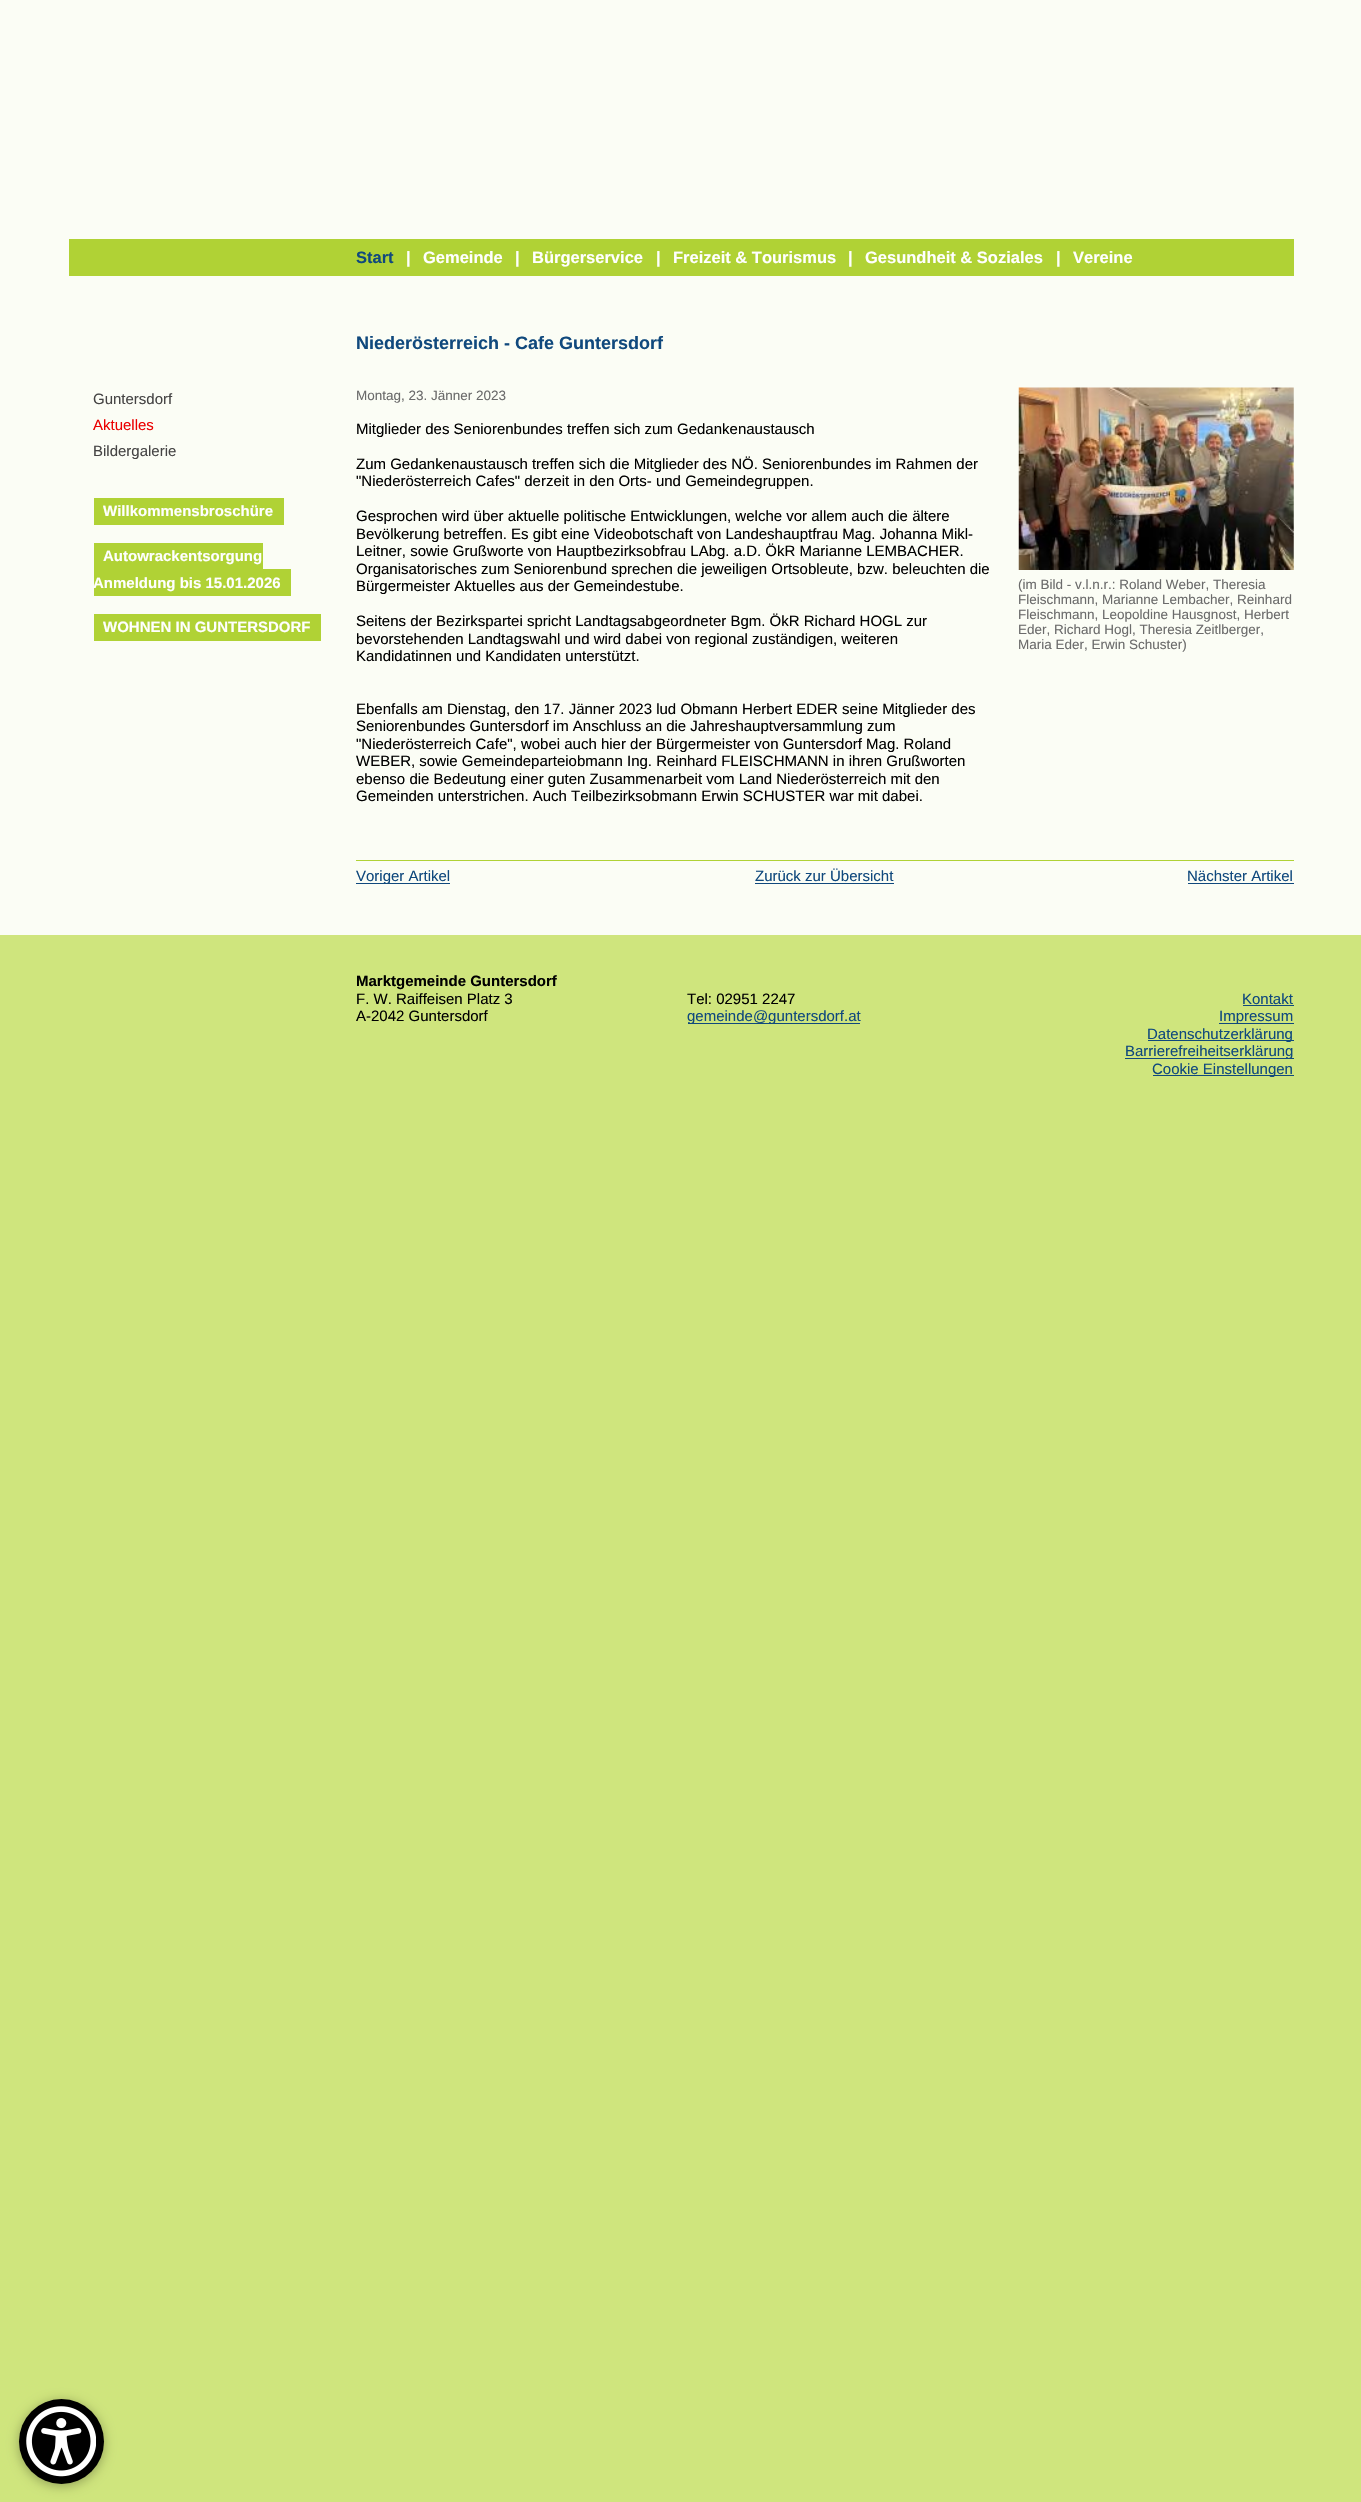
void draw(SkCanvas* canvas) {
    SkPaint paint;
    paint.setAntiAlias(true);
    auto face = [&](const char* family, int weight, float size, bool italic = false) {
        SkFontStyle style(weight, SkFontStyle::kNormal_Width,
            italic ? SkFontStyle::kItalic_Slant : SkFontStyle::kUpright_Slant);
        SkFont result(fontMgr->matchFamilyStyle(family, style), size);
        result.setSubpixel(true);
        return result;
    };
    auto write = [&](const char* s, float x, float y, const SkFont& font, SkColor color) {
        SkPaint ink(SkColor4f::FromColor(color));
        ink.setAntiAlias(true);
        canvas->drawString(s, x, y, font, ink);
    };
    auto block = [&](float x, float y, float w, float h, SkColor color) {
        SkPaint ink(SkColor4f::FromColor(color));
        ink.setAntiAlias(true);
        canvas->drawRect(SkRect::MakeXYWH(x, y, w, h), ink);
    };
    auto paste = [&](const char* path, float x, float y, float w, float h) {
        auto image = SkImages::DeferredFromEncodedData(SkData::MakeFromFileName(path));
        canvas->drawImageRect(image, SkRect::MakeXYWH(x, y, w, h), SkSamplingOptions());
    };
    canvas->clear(SkColorSetRGB(207, 229, 125));
    block(0, 0, 1361, 935, SkColorSetRGB(251, 253, 245));
    block(69, 239, 1225, 37, SkColorSetRGB(176, 210, 53));
    auto kFont1 = face("Liberation Sans", 700, 16.5f);
    write("Start", 356, 263, kFont1, SkColorSetRGB(16, 73, 125));
    write("|", 406, 263, kFont1, SK_ColorWHITE);
    write("Gemeinde", 423, 263, kFont1, SK_ColorWHITE);
    write("|", 515, 263, kFont1, SK_ColorWHITE);
    write("Bürgerservice", 532, 263, kFont1, SK_ColorWHITE);
    write("|", 656, 263, kFont1, SK_ColorWHITE);
    write("Freizeit & Tourismus", 673, 263, kFont1, SK_ColorWHITE);
    write("|", 848, 263, kFont1, SK_ColorWHITE);
    write("Gesundheit & Soziales", 865, 263, kFont1, SK_ColorWHITE);
    write("|", 1056, 263, kFont1, SK_ColorWHITE);
    write("Vereine", 1073, 263, kFont1, SK_ColorWHITE);
    auto kFont2 = face("Liberation Sans", 400, 15);
    write("Guntersdorf", 93, 404, kFont2, SkColorSetRGB(69, 68, 68));
    write("Aktuelles", 93, 430, kFont2, SkColorSetRGB(235, 0, 0));
    write("Bildergalerie", 93, 456, kFont2, SkColorSetRGB(69, 68, 68));
    block(94, 498, 190, 27, SkColorSetRGB(176, 210, 53));
    auto kFont3 = face("Liberation Sans", 700, 15);
    write("Willkommensbroschüre", 103, 516, kFont3, SK_ColorWHITE);
    block(94, 543, 169, 26, SkColorSetRGB(176, 210, 53));
    write("Autowrackentsorgung", 103, 561, kFont3, SK_ColorWHITE);
    block(94, 569, 197, 27, SkColorSetRGB(176, 210, 53));
    write("Anmeldung bis 15.01.2026", 93, 588, kFont3, SK_ColorWHITE);
    block(94, 614, 227, 27, SkColorSetRGB(176, 210, 53));
    write("WOHNEN IN GUNTERSDORF", 103, 632, kFont3, SK_ColorWHITE);
    auto kFont4 = face("Liberation Sans", 700, 18);
    write("Niederösterreich - Cafe Guntersdorf", 356, 349, kFont4, SkColorSetRGB(16, 73, 125));
    auto kFont5 = face("Liberation Sans", 400, 13.5f);
    write("Montag, 23. Jänner 2023", 356, 400, kFont5, SkColorSetRGB(107, 107, 107));
    write("Mitglieder des Seniorenbundes treffen sich zum Gedankenaustausch", 356, 434, kFont2, SK_ColorBLACK);
    write("Zum Gedankenaustausch treffen sich die Mitglieder des NÖ. Seniorenbundes im Rahmen der", 356, 469, kFont2, SK_ColorBLACK);
    write("\"Niederösterreich Cafes\" derzeit in den Orts- und Gemeindegruppen.", 356, 486, kFont2, SK_ColorBLACK);
    write("Gesprochen wird über aktuelle politische Entwicklungen, welche vor allem auch die ältere", 356, 521, kFont2, SK_ColorBLACK);
    write("Bevölkerung betreffen. Es gibt eine Videobotschaft von Landeshauptfrau Mag. Johanna Mikl-", 356, 539, kFont2, SK_ColorBLACK);
    write("Leitner, sowie Grußworte von Hauptbezirksobfrau LAbg. a.D. ÖkR Marianne LEMBACHER.", 356, 556, kFont2, SK_ColorBLACK);
    write("Organisatorisches zum Seniorenbund sprechen die jeweiligen Ortsobleute, bzw. beleuchten die", 356, 574, kFont2, SK_ColorBLACK);
    write("Bürgermeister Aktuelles aus der Gemeindestube.", 356, 591, kFont2, SK_ColorBLACK);
    write("Seitens der Bezirkspartei spricht Landtagsabgeordneter Bgm. ÖkR Richard HOGL zur", 356, 626, kFont2, SK_ColorBLACK);
    write("bevorstehenden Landtagswahl und wird dabei von regional zuständigen, weiteren", 356, 644, kFont2, SK_ColorBLACK);
    write("Kandidatinnen und Kandidaten unterstützt.", 356, 661, kFont2, SK_ColorBLACK);
    write("Ebenfalls am Dienstag, den 17. Jänner 2023 lud Obmann Herbert EDER seine Mitglieder des", 356, 714, kFont2, SK_ColorBLACK);
    write("Seniorenbundes Guntersdorf im Anschluss an die Jahreshauptversammlung zum", 356, 731, kFont2, SK_ColorBLACK);
    write("\"Niederösterreich Cafe\", wobei auch hier der Bürgermeister von Guntersdorf Mag. Roland", 356, 749, kFont2, SK_ColorBLACK);
    write("WEBER, sowie Gemeindeparteiobmann Ing. Reinhard FLEISCHMANN in ihren Grußworten", 356, 766, kFont2, SK_ColorBLACK);
    write("ebenso die Bedeutung einer guten Zusammenarbeit vom Land Niederösterreich mit den", 356, 784, kFont2, SK_ColorBLACK);
    write("Gemeinden unterstrichen. Auch Teilbezirksobmann Erwin SCHUSTER war mit dabei.", 356, 801, kFont2, SK_ColorBLACK);
    paste("pic1.png", 1018, 387, 276, 183);
    write("(im Bild - v.l.n.r.: Roland Weber, Theresia", 1018, 589, kFont5, SkColorSetRGB(107, 107, 107));
    write("Fleischmann, Marianne Lembacher, Reinhard", 1018, 604, kFont5, SkColorSetRGB(107, 107, 107));
    write("Fleischmann, Leopoldine Hausgnost, Herbert", 1018, 619, kFont5, SkColorSetRGB(107, 107, 107));
    write("Eder, Richard Hogl, Theresia Zeitlberger,", 1018, 634, kFont5, SkColorSetRGB(107, 107, 107));
    write("Maria Eder, Erwin Schuster)", 1018, 649, kFont5, SkColorSetRGB(107, 107, 107));
    block(356, 860, 938, 1, SkColorSetRGB(176, 210, 53));
    block(356, 883, 94, 1, SkColorSetRGB(16, 73, 125));
    write("Voriger Artikel", 356, 881, kFont2, SkColorSetRGB(16, 73, 125));
    write("Zurück zur Übersicht", 755, 881, kFont2, SkColorSetRGB(16, 73, 125));
    block(755, 883, 139, 1, SkColorSetRGB(16, 73, 125));
    write("Nächster Artikel", 1187, 881, kFont2, SkColorSetRGB(16, 73, 125));
    block(1188, 883, 106, 1, SkColorSetRGB(16, 73, 125));
    write("Marktgemeinde Guntersdorf", 356, 986, kFont3, SK_ColorBLACK);
    write("F. W. Raiffeisen Platz 3", 356, 1004, kFont2, SK_ColorBLACK);
    write("A-2042 Guntersdorf", 356, 1021, kFont2, SK_ColorBLACK);
    write("Tel: 02951 2247", 687, 1004, kFont2, SK_ColorBLACK);
    block(688, 1023, 172, 1, SkColorSetRGB(16, 73, 125));
    write("gemeinde@guntersdorf.at", 687, 1021, kFont2, SkColorSetRGB(16, 73, 125));
    write("Kontakt", 1242, 1004, kFont2, SkColorSetRGB(16, 73, 125));
    block(1243, 1005, 51, 1, SkColorSetRGB(16, 73, 125));
    block(1219, 1023, 75, 1, SkColorSetRGB(16, 73, 125));
    write("Impressum", 1219, 1021, kFont2, SkColorSetRGB(16, 73, 125));
    block(1148, 1040, 146, 1, SkColorSetRGB(16, 73, 125));
    write("Datenschutzerklärung", 1147, 1039, kFont2, SkColorSetRGB(16, 73, 125));
    block(1125, 1058, 169, 1, SkColorSetRGB(16, 73, 125));
    write("Barrierefreiheitserklärung", 1125, 1056, kFont2, SkColorSetRGB(16, 73, 125));
    block(1153, 1075, 141, 1, SkColorSetRGB(16, 73, 125));
    write("Cookie Einstellungen", 1152, 1074, kFont2, SkColorSetRGB(16, 73, 125));
    paint.setColor(SkColorSetARGB(77, 0, 0, 0));
    paint.setMaskFilter(SkMaskFilter::MakeBlur(kNormal_SkBlurStyle, 6));
    canvas->drawRoundRect(SkRect::MakeXYWH(19, 2401, 85, 85), 42.5f, 42.5f, paint);
    paint.setMaskFilter(nullptr);
    paint.setColor(SK_ColorBLACK);
    canvas->drawCircle(61.5f, 2441.5f, 42.5f, paint);
    paste("pic2.png", 26, 2406, 70, 71);
}
